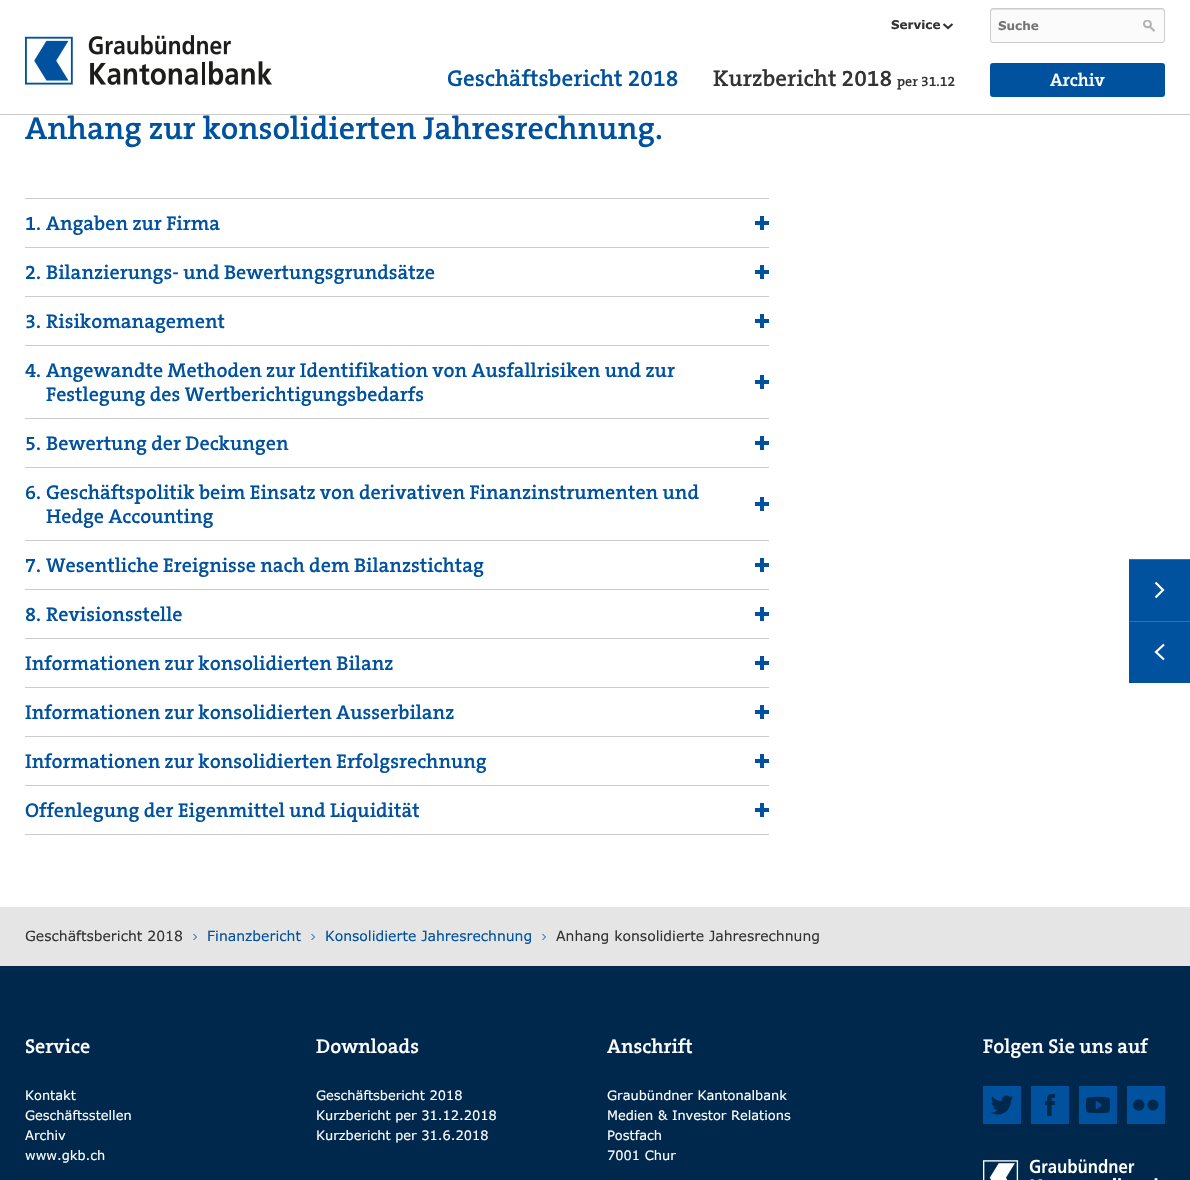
void draw(SkCanvas* canvas) {
    SkPaint paint;
    paint.setAntiAlias(true);
    auto face = [&](const char* family, int weight, float size, bool italic = false) {
        SkFontStyle style(weight, SkFontStyle::kNormal_Width,
            italic ? SkFontStyle::kItalic_Slant : SkFontStyle::kUpright_Slant);
        SkFont result(fontMgr->matchFamilyStyle(family, style), size);
        result.setSubpixel(true);
        return result;
    };
    auto write = [&](const char* s, float x, float y, const SkFont& font, SkColor color) {
        SkPaint ink(SkColor4f::FromColor(color));
        ink.setAntiAlias(true);
        canvas->drawString(s, x, y, font, ink);
    };
    auto block = [&](float x, float y, float w, float h, SkColor color) {
        SkPaint ink(SkColor4f::FromColor(color));
        ink.setAntiAlias(true);
        canvas->drawRect(SkRect::MakeXYWH(x, y, w, h), ink);
    };
    auto card = [&](float x, float y, float w, float h, float radius, SkColor color) {
        SkPaint ink(SkColor4f::FromColor(color));
        ink.setAntiAlias(true);
        canvas->drawRoundRect(SkRect::MakeXYWH(x, y, w, h), radius, radius, ink);
    };
    auto paste = [&](const char* path, float x, float y, float w, float h) {
        auto image = SkImages::DeferredFromEncodedData(SkData::MakeFromFileName(path));
        canvas->drawImageRect(image, SkRect::MakeXYWH(x, y, w, h), SkSamplingOptions());
    };
    canvas->clear(SK_ColorWHITE);
    block(0, 114, 1190, 1, SkColorSetRGB(204, 204, 204));
    paste("pic1.png", 25, 35, 247, 50);
    auto kFont1 = face("Verdana", 700, 12);
    write("Service", 891, 29, kFont1, SkColorSetRGB(51, 51, 51));
    paint.setStyle(SkPaint::kStroke_Style);
    paint.setStrokeWidth(2.1f);
    paint.setColor(SkColorSetRGB(51, 51, 51));
    canvas->drawPath(SkPathBuilder().moveTo(952.5f, 24).lineTo(948, 28).lineTo(943.5f, 24).detach(), paint);
    card(990, 8, 175, 35, 3, SkColorSetRGB(251, 251, 251));
    paint.setStyle(SkPaint::kFill_Style);
    paint.setColor(SkColorSetRGB(226, 226, 226));
    canvas->drawPath(SkPathBuilder().moveTo(993, 10).lineTo(1162, 10).cubicTo(1163, 10, 1164, 11, 1164, 12).cubicTo(1164, 11, 1164, 9, 1162, 9).lineTo(992, 9).cubicTo(991, 10, 991, 11, 991, 12).cubicTo(991, 11, 992, 10, 993, 10).close().detach(), paint);
    paint.setStyle(SkPaint::kStroke_Style);
    paint.setStrokeWidth(1);
    paint.setColor(SkColorSetRGB(204, 204, 204));
    canvas->drawRoundRect(SkRect::MakeXYWH(990.5f, 8.5f, 174, 34), 2.5f, 2.5f, paint);
    write("Suche", 998, 30, kFont1, SkColorSetRGB(117, 117, 117));
    paste("pic2.png", 1143, 20, 12, 12);
    auto kFont2 = face("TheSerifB", 600, 23);
    write("Geschäftsbericht 2018", 447, 86, kFont2, SkColorSetRGB(0, 81, 158));
    write("Kurzbericht 2018", 713, 86, kFont2, SkColorSetRGB(51, 51, 51));
    auto kFont3 = face("TheSerifB", 600, 14);
    write("per 31.12", 897, 86, kFont3, SkColorSetRGB(51, 51, 51));
    card(990, 63, 175, 34, 3, SkColorSetRGB(0, 81, 158));
    auto kFont4 = face("TheSerifB", 600, 18);
    write("Archiv", 1050, 86, kFont4, SK_ColorWHITE);
    auto kFont5 = face("TheSerifB", 600, 32);
    write("Anhang zur konsolidierten Jahresrechnung.", 25, 139, kFont5, SkColorSetRGB(0, 81, 158));
    block(25, 198, 744, 1, SkColorSetRGB(204, 204, 204));
    block(25, 247, 744, 1, SkColorSetRGB(204, 204, 204));
    auto kFont6 = face("TheSerifB", 600, 20);
    write("1.", 25, 230, kFont6, SkColorSetRGB(0, 81, 158));
    write("Angaben zur Firma", 46, 230, kFont6, SkColorSetRGB(0, 81, 158));
    block(755, 221, 14, 4, SkColorSetRGB(0, 81, 158));
    block(760, 216, 4, 14, SkColorSetRGB(0, 81, 158));
    block(25, 296, 744, 1, SkColorSetRGB(204, 204, 204));
    write("2.", 25, 279, kFont6, SkColorSetRGB(0, 81, 158));
    write("Bilanzierungs- und Bewertungsgrundsätze", 46, 279, kFont6, SkColorSetRGB(0, 81, 158));
    block(755, 270, 14, 4, SkColorSetRGB(0, 81, 158));
    block(760, 265, 4, 14, SkColorSetRGB(0, 81, 158));
    block(25, 345, 744, 1, SkColorSetRGB(204, 204, 204));
    write("3.", 25, 328, kFont6, SkColorSetRGB(0, 81, 158));
    write("Risikomanagement", 46, 328, kFont6, SkColorSetRGB(0, 81, 158));
    block(755, 319, 14, 4, SkColorSetRGB(0, 81, 158));
    block(760, 314, 4, 14, SkColorSetRGB(0, 81, 158));
    block(25, 418, 744, 1, SkColorSetRGB(204, 204, 204));
    write("4.", 25, 377, kFont6, SkColorSetRGB(0, 81, 158));
    write("Angewandte Methoden zur Identifikation von Ausfallrisiken und zur", 46, 377, kFont6, SkColorSetRGB(0, 81, 158));
    write("Festlegung des Wertberichtigungsbedarfs", 46, 401, kFont6, SkColorSetRGB(0, 81, 158));
    block(755, 380, 14, 4, SkColorSetRGB(0, 81, 158));
    block(760, 375, 4, 14, SkColorSetRGB(0, 81, 158));
    block(25, 467, 744, 1, SkColorSetRGB(204, 204, 204));
    write("5.", 25, 450, kFont6, SkColorSetRGB(0, 81, 158));
    write("Bewertung der Deckungen", 46, 450, kFont6, SkColorSetRGB(0, 81, 158));
    block(755, 441, 14, 4, SkColorSetRGB(0, 81, 158));
    block(760, 436, 4, 14, SkColorSetRGB(0, 81, 158));
    block(25, 540, 744, 1, SkColorSetRGB(204, 204, 204));
    write("6.", 25, 499, kFont6, SkColorSetRGB(0, 81, 158));
    write("Geschäftspolitik beim Einsatz von derivativen Finanzinstrumenten und", 46, 499, kFont6, SkColorSetRGB(0, 81, 158));
    write("Hedge Accounting", 46, 523, kFont6, SkColorSetRGB(0, 81, 158));
    block(755, 502, 14, 4, SkColorSetRGB(0, 81, 158));
    block(760, 497, 4, 14, SkColorSetRGB(0, 81, 158));
    block(25, 589, 744, 1, SkColorSetRGB(204, 204, 204));
    write("7.", 25, 572, kFont6, SkColorSetRGB(0, 81, 158));
    write("Wesentliche Ereignisse nach dem Bilanzstichtag", 46, 572, kFont6, SkColorSetRGB(0, 81, 158));
    block(755, 563, 14, 4, SkColorSetRGB(0, 81, 158));
    block(760, 558, 4, 14, SkColorSetRGB(0, 81, 158));
    block(25, 638, 744, 1, SkColorSetRGB(204, 204, 204));
    write("8.", 25, 621, kFont6, SkColorSetRGB(0, 81, 158));
    write("Revisionsstelle", 46, 621, kFont6, SkColorSetRGB(0, 81, 158));
    block(755, 612, 14, 4, SkColorSetRGB(0, 81, 158));
    block(760, 607, 4, 14, SkColorSetRGB(0, 81, 158));
    block(25, 687, 744, 1, SkColorSetRGB(204, 204, 204));
    write("Informationen zur konsolidierten Bilanz", 25, 670, kFont6, SkColorSetRGB(0, 81, 158));
    block(755, 661, 14, 4, SkColorSetRGB(0, 81, 158));
    block(760, 656, 4, 14, SkColorSetRGB(0, 81, 158));
    block(25, 736, 744, 1, SkColorSetRGB(204, 204, 204));
    write("Informationen zur konsolidierten Ausserbilanz", 25, 719, kFont6, SkColorSetRGB(0, 81, 158));
    block(755, 710, 14, 4, SkColorSetRGB(0, 81, 158));
    block(760, 705, 4, 14, SkColorSetRGB(0, 81, 158));
    block(25, 785, 744, 1, SkColorSetRGB(204, 204, 204));
    write("Informationen zur konsolidierten Erfolgsrechnung", 25, 768, kFont6, SkColorSetRGB(0, 81, 158));
    block(755, 759, 14, 4, SkColorSetRGB(0, 81, 158));
    block(760, 754, 4, 14, SkColorSetRGB(0, 81, 158));
    block(25, 834, 744, 1, SkColorSetRGB(204, 204, 204));
    write("Offenlegung der Eigenmittel und Liquidität", 25, 817, kFont6, SkColorSetRGB(0, 81, 158));
    block(755, 808, 14, 4, SkColorSetRGB(0, 81, 158));
    block(760, 803, 4, 14, SkColorSetRGB(0, 81, 158));
    block(1129, 560, 61, 61, SkColorSetRGB(0, 81, 158));
    block(1129, 559, 61, 1, SkColorSetRGB(59, 108, 174));
    paint.setStrokeWidth(2.2f);
    paint.setColor(SK_ColorWHITE);
    canvas->drawPath(SkPathBuilder().moveTo(1155.5f, 582.5f).lineTo(1163, 590).lineTo(1155.5f, 597.5f).detach(), paint);
    block(1129, 622, 61, 61, SkColorSetRGB(0, 81, 158));
    block(1129, 621, 61, 1, SkColorSetRGB(59, 108, 174));
    canvas->drawPath(SkPathBuilder().moveTo(1164, 644.5f).lineTo(1156, 652).lineTo(1164, 659.5f).detach(), paint);
    block(0, 907, 1190, 59, SkColorSetRGB(229, 229, 229));
    auto kFont7 = face("Verdana", 400, 14);
    write("Geschäftsbericht 2018", 25, 941, kFont7, SkColorSetRGB(51, 51, 51));
    paint.setStrokeWidth(1);
    paint.setColor(SkColorSetRGB(0, 81, 158));
    canvas->drawPath(SkPathBuilder().moveTo(193.5f, 934).lineTo(196.5f, 937).lineTo(193.5f, 940).detach(), paint);
    write("Finanzbericht", 207, 941, kFont7, SkColorSetRGB(0, 81, 158));
    canvas->drawPath(SkPathBuilder().moveTo(311.5f, 934).lineTo(314.5f, 937).lineTo(311.5f, 940).detach(), paint);
    write("Konsolidierte Jahresrechnung", 325, 941, kFont7, SkColorSetRGB(0, 81, 158));
    canvas->drawPath(SkPathBuilder().moveTo(542.5f, 934).lineTo(545.5f, 937).lineTo(542.5f, 940).detach(), paint);
    write("Anhang konsolidierte Jahresrechnung", 556, 941, kFont7, SkColorSetRGB(51, 51, 51));
    block(0, 966, 1190, 214, SkColorSetRGB(0, 40, 77));
    write("Service", 25, 1053, kFont6, SK_ColorWHITE);
    auto kFont8 = face("Verdana", 400, 13);
    write("Kontakt", 25, 1100, kFont8, SK_ColorWHITE);
    write("Geschäftsstellen", 25, 1120, kFont8, SK_ColorWHITE);
    write("Archiv", 25, 1140, kFont8, SK_ColorWHITE);
    write("www.gkb.ch", 25, 1160, kFont8, SK_ColorWHITE);
    write("Downloads", 316, 1053, kFont6, SK_ColorWHITE);
    write("Geschäftsbericht 2018", 316, 1100, kFont8, SK_ColorWHITE);
    write("Kurzbericht per 31.12.2018", 316, 1120, kFont8, SK_ColorWHITE);
    write("Kurzbericht per 31.6.2018", 316, 1140, kFont8, SK_ColorWHITE);
    write("Anschrift", 607, 1053, kFont6, SK_ColorWHITE);
    write("Graubündner Kantonalbank", 607, 1100, kFont8, SK_ColorWHITE);
    write("Medien & Investor Relations", 607, 1120, kFont8, SK_ColorWHITE);
    write("Postfach", 607, 1140, kFont8, SK_ColorWHITE);
    write("7001 Chur", 607, 1160, kFont8, SK_ColorWHITE);
    write("Folgen Sie uns auf", 983, 1053, kFont6, SK_ColorWHITE);
    block(983, 1086, 38, 38, SkColorSetRGB(0, 81, 158));
    paste("pic3.png", 991, 1095, 22, 20);
    block(1031, 1086, 38, 38, SkColorSetRGB(0, 81, 158));
    paste("pic4.png", 1044, 1094, 12, 22);
    block(1079, 1086, 38, 38, SkColorSetRGB(0, 81, 158));
    paste("pic5.png", 1085, 1096, 26, 18);
    block(1127, 1086, 38, 38, SkColorSetRGB(0, 81, 158));
    paint.setStyle(SkPaint::kFill_Style);
    paint.setColor(SkColorSetRGB(0, 40, 77));
    canvas->drawCircle(1153, 1105, 5.5f, paint);
    canvas->drawPath(SkPathBuilder().moveTo(1144.5f, 1105).cubicTo(1144.5f, 1112.5f, 1133, 1112.5f, 1133, 1105).cubicTo(1133, 1097.5f, 1144.5f, 1097.5f, 1144.5f, 1105).close().detach(), paint);
    paste("pic6.png", 983, 1159, 175, 21);
}
